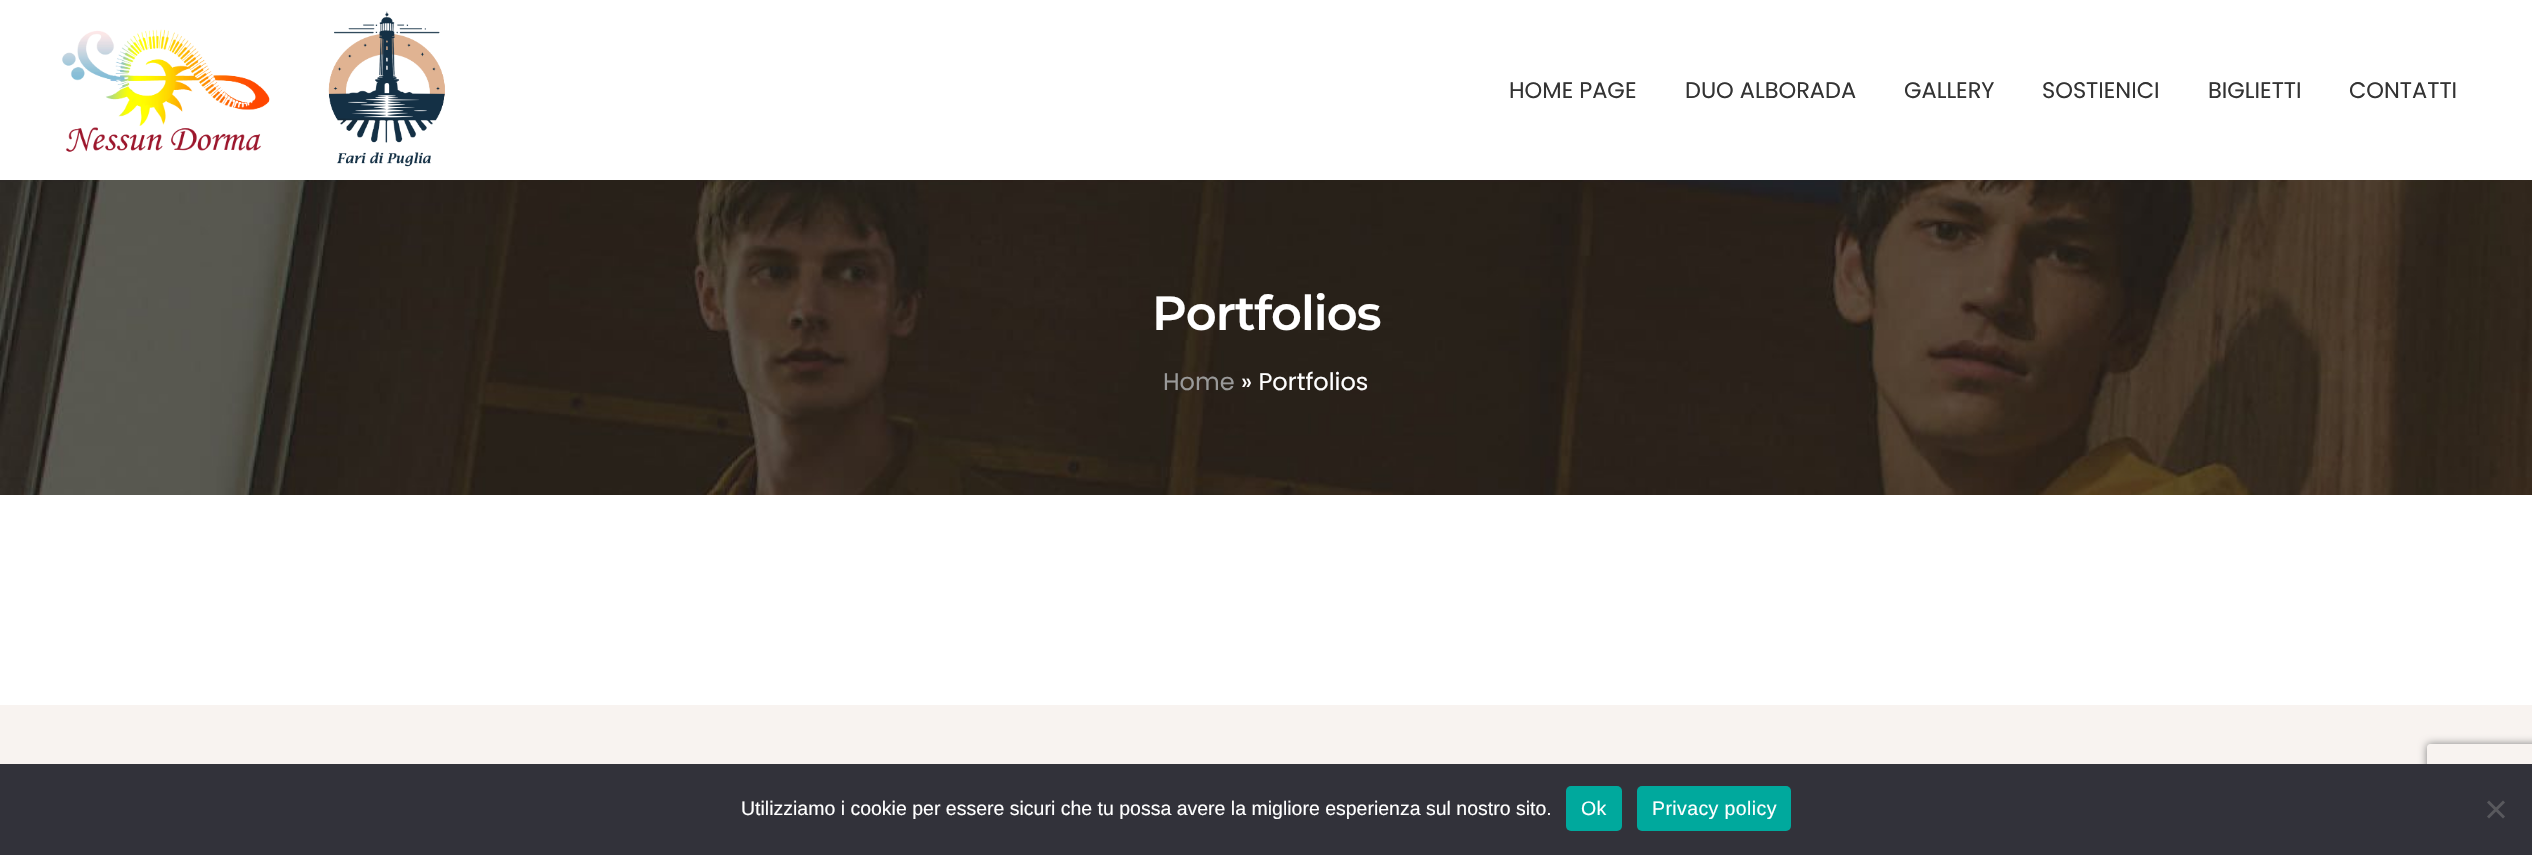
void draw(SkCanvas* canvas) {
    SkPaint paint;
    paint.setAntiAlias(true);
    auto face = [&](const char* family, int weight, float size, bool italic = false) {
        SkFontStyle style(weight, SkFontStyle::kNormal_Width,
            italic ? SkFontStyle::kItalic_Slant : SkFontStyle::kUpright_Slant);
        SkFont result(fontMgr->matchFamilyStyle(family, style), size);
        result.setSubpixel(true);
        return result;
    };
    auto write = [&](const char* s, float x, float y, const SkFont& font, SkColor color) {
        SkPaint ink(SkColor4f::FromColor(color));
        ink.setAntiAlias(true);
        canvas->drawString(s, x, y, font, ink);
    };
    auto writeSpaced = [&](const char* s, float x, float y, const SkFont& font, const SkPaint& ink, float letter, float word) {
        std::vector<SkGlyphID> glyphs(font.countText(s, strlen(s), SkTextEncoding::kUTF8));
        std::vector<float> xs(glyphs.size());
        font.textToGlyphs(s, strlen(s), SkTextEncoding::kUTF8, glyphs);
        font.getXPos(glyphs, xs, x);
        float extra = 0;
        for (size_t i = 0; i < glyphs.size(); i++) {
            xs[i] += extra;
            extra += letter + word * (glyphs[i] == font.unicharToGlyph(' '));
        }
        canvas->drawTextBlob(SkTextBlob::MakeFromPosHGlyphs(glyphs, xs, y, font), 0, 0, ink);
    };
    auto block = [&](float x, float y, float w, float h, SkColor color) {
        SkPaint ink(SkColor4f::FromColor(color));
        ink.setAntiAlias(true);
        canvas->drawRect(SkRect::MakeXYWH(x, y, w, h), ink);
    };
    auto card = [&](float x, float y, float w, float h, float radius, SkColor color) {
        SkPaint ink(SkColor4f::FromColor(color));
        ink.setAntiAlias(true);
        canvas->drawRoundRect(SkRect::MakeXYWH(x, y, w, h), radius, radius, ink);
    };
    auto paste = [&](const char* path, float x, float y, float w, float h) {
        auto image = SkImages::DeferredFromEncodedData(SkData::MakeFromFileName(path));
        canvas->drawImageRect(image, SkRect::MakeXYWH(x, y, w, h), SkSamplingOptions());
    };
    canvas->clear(SK_ColorWHITE);
    paste("pic1.png", 62, 29, 208, 123);
    paste("pic2.png", 328, 11, 117, 156);
    auto kFont1 = face("Poppins", 400, 22.5f);
    write("HOME PAGE", 1509, 98, kFont1, SkColorSetRGB(51, 51, 51));
    write("DUO ALBORADA", 1685, 98, kFont1, SkColorSetRGB(51, 51, 51));
    write("GALLERY", 1904, 98, kFont1, SkColorSetRGB(51, 51, 51));
    write("SOSTIENICI", 2042, 98, kFont1, SkColorSetRGB(51, 51, 51));
    write("BIGLIETTI", 2208, 98, kFont1, SkColorSetRGB(51, 51, 51));
    write("CONTATTI", 2349, 98, kFont1, SkColorSetRGB(51, 51, 51));
    paste("pic3.png", 0, 180, 2532, 315);
    auto kFont2 = face("Montserrat", 600, 48);
    paint.setColor(SK_ColorWHITE);
    writeSpaced("Portfolios", 1152, 330, kFont2, paint, -1, 0);
    auto kFont3 = face("Poppins", 400, 24);
    write("Home", 1163, 390, kFont3, SkColorSetRGB(153, 153, 153));
    write("» Portfolios", 1241, 390, kFont3, SK_ColorWHITE);
    block(0, 705, 2532, 59, SkColorSetRGB(248, 243, 240));
    canvas->save();
    canvas->clipPath(SkPathBuilder(SkPathFillType::kEvenOdd).moveTo(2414, 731).lineTo(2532, 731).lineTo(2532, 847).lineTo(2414, 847).close().moveTo(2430, 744).lineTo(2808, 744).cubicTo(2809.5f, 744, 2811, 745.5f, 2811, 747).lineTo(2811, 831).cubicTo(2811, 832.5f, 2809.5f, 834, 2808, 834).lineTo(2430, 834).cubicTo(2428.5f, 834, 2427, 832.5f, 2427, 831).lineTo(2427, 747).cubicTo(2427, 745.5f, 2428.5f, 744, 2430, 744).close().detach(), true);
    paint.setColor(SkColorSetRGB(128, 128, 128));
    paint.setMaskFilter(SkMaskFilter::MakeBlur(kNormal_SkBlurStyle, 4));
    canvas->drawRoundRect(SkRect::MakeXYWH(2427, 744, 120, 90), 3, 3, paint);
    paint.setMaskFilter(nullptr);
    canvas->restore();
    block(0, 764, 2532, 91, SkColorSetRGB(50, 50, 58));
    auto kFont4 = face("Liberation Sans", 400, 19.5f);
    write("Utilizziamo i cookie per essere sicuri che tu possa avere la migliore esperienza sul nostro sito.", 741, 815, kFont4, SK_ColorWHITE);
    card(1566, 786, 56, 45, 5, SkColorSetRGB(0, 169, 157));
    paint.setColor(SK_ColorWHITE);
    writeSpaced("Ok", 1581, 815, kFont4, paint, 0.4f, 0);
    card(1637, 786, 154, 45, 5, SkColorSetRGB(0, 169, 157));
    writeSpaced("Privacy policy", 1652, 815, kFont4, paint, 0.4f, 0);
    paint.setColor(SkColorSetRGB(89, 89, 93));
    canvas->drawPath(SkPathBuilder().moveTo(2503, 800.5f).lineTo(2505, 802.5f).lineTo(2489, 818.5f).lineTo(2487, 816.5f).close().detach(), paint);
    canvas->drawPath(SkPathBuilder().moveTo(2487, 802.5f).lineTo(2489, 800.5f).lineTo(2505, 816.5f).lineTo(2503, 818.5f).close().detach(), paint);
}
